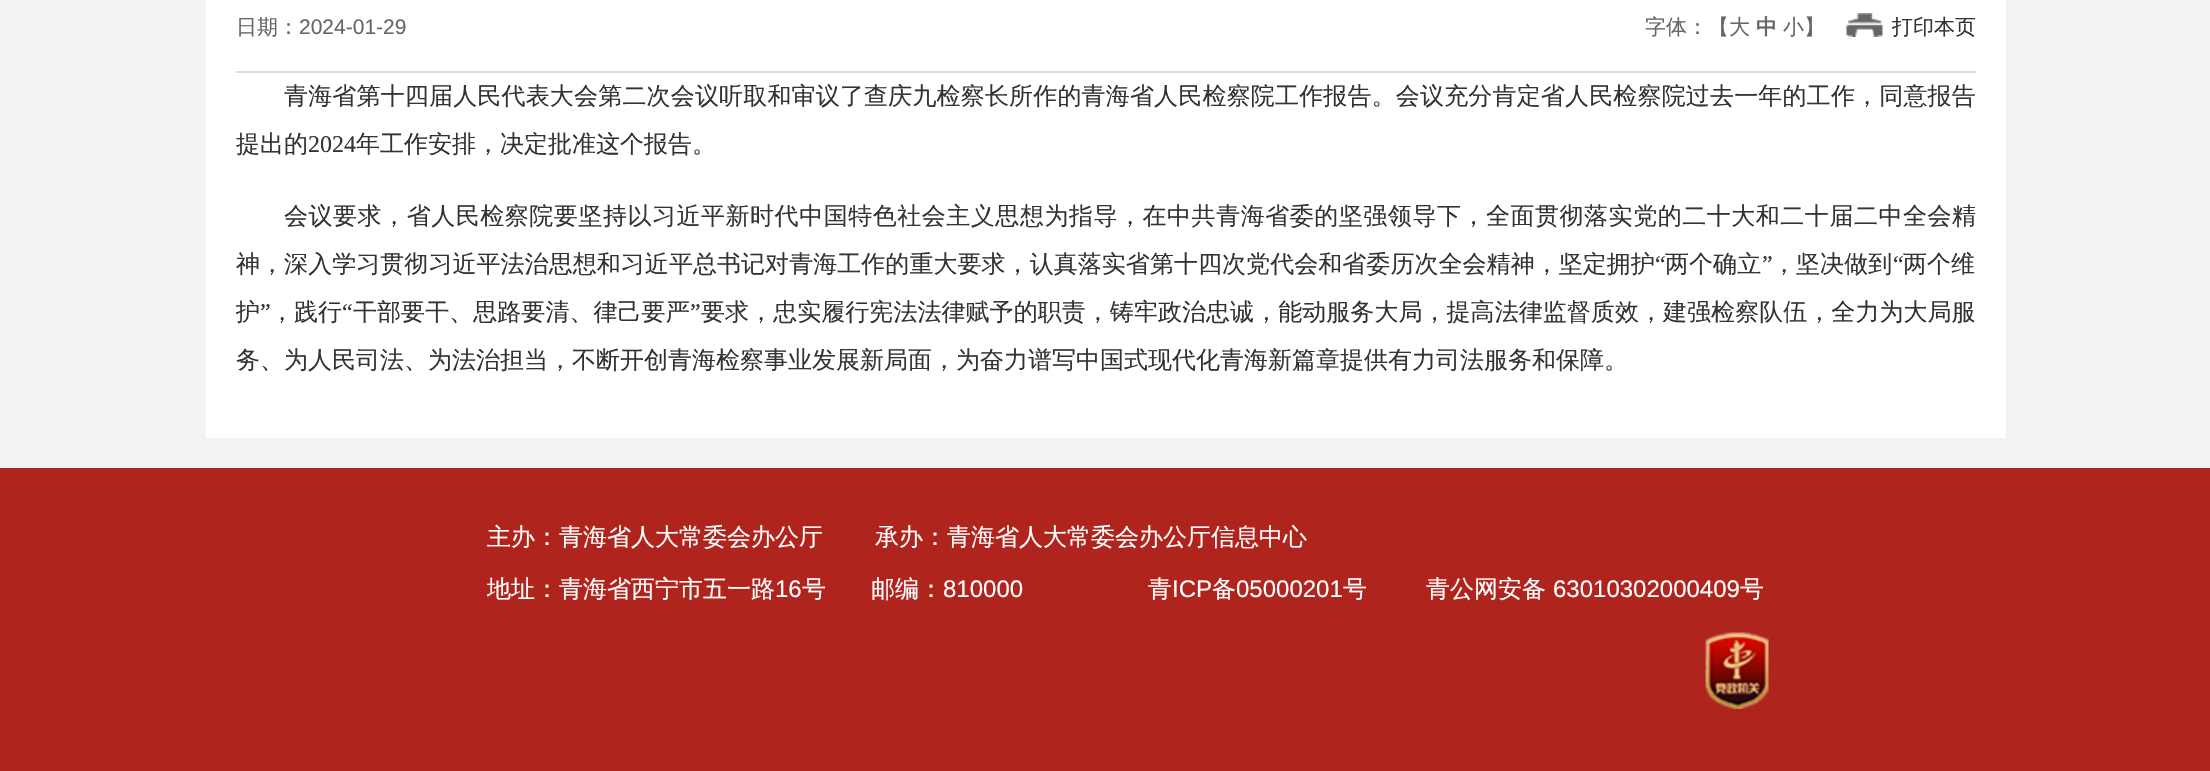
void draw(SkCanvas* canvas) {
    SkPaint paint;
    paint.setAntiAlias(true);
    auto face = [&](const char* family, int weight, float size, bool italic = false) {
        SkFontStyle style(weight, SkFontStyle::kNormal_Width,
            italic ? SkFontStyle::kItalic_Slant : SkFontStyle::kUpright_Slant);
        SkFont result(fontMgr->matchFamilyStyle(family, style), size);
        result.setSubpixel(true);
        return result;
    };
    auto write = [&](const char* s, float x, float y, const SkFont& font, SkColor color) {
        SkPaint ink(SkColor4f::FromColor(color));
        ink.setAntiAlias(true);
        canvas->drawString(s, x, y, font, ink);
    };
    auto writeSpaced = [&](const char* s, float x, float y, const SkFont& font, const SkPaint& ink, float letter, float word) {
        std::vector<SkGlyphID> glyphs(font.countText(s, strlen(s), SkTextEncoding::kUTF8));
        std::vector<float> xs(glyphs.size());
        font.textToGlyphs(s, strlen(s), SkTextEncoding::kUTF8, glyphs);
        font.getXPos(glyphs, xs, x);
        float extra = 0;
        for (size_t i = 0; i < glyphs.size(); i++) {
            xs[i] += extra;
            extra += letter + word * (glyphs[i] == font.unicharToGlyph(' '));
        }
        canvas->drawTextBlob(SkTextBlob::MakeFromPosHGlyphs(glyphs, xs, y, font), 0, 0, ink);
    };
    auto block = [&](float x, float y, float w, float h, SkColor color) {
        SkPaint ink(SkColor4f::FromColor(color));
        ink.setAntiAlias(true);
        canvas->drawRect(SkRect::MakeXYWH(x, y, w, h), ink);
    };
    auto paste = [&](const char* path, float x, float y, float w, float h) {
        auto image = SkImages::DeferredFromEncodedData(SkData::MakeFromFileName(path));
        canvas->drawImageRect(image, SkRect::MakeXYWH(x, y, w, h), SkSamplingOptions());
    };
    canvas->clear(SkColorSetRGB(242, 244, 243));
    block(206, 0, 1800, 438, SK_ColorWHITE);
    block(236, 71, 1740, 2, SkColorSetRGB(221, 221, 221));
    auto kFont1 = face("WenQuanYi Zen Hei", 500, 21);
    write("日期：", 236, 34, kFont1, SkColorSetRGB(102, 102, 102));
    auto kFont2 = face("Liberation Sans", 400, 21);
    write("2024-01-29", 299, 34, kFont2, SkColorSetRGB(102, 102, 102));
    write("字体：【大", 1645, 34, kFont1, SkColorSetRGB(102, 102, 102));
    auto kFont3 = face("WenQuanYi Zen Hei", 700, 21);
    write("中", 1756, 34, kFont3, SkColorSetRGB(102, 102, 102));
    write("小】", 1783, 34, kFont1, SkColorSetRGB(102, 102, 102));
    paste("pic1.png", 1846, 13, 37, 24);
    write("打印本页", 1892, 34, kFont1, SkColorSetRGB(51, 51, 51));
    auto kFont4 = face("WenQuanYi Zen Hei", 500, 24);
    paint.setColor(SkColorSetRGB(51, 51, 51));
    writeSpaced("青海省第十四届人民代表大会第二次会议听取和审议了查庆九检察长所作的青海省人民检察院工作报告。会议充分肯定省人民检察院过去一年的工作，同意报告", 284, 104, kFont4, paint, 0.17f, 0);
    write("提出的", 236, 152, kFont4, SkColorSetRGB(51, 51, 51));
    auto kFont5 = face("Liberation Serif", 400, 24);
    write("2024", 308, 152, kFont5, SkColorSetRGB(51, 51, 51));
    write("年工作安排，决定批准这个报告。", 356, 152, kFont4, SkColorSetRGB(51, 51, 51));
    writeSpaced("会议要求，省人民检察院要坚持以习近平新时代中国特色社会主义思想为指导，在中共青海省委的坚强领导下，全面贯彻落实党的二十大和二十届二中全会精", 284, 224, kFont4, paint, 0.53f, 0);
    writeSpaced("神，深入学习贯彻习近平法治思想和习近平总书记对青海工作的重大要求，认真落实省第十四次党代会和省委历次全会精神，坚定拥护", 236, 272, kFont4, paint, 0.05f, 0);
    writeSpaced("“", 1655, 272, kFont5, paint, 0.05f, 0);
    writeSpaced("两个确立", 1665, 272, kFont4, paint, 0.05f, 0);
    writeSpaced("”", 1762, 272, kFont5, paint, 0.05f, 0);
    writeSpaced("，坚决做到", 1772, 272, kFont4, paint, 0.05f, 0);
    writeSpaced("“", 1893, 272, kFont5, paint, 0.05f, 0);
    writeSpaced("两个维", 1903, 272, kFont4, paint, 0.05f, 0);
    writeSpaced("护", 236, 320, kFont4, paint, 0.05f, 0);
    writeSpaced("”", 260, 320, kFont5, paint, 0.05f, 0);
    writeSpaced("，践行", 270, 320, kFont4, paint, 0.05f, 0);
    writeSpaced("“", 342, 320, kFont5, paint, 0.05f, 0);
    writeSpaced("干部要干、思路要清、律己要严", 353, 320, kFont4, paint, 0.05f, 0);
    writeSpaced("”", 690, 320, kFont5, paint, 0.05f, 0);
    writeSpaced("要求，忠实履行宪法法律赋予的职责，铸牢政治忠诚，能动服务大局，提高法律监督质效，建强检察队伍，全力为大局服", 701, 320, kFont4, paint, 0.05f, 0);
    write("务、为人民司法、为法治担当，不断开创青海检察事业发展新局面，为奋力谱写中国式现代化青海新篇章提供有力司法服务和保障。", 236, 368, kFont4, SkColorSetRGB(51, 51, 51));
    block(0, 468, 2210, 303, SkColorSetRGB(175, 36, 29));
    write("主办：青海省人大常委会办公厅", 487, 545, kFont4, SK_ColorWHITE);
    write("承办：青海省人大常委会办公厅信息中心", 875, 545, kFont4, SK_ColorWHITE);
    write("地址：青海省西宁市五一路", 487, 597, kFont4, SK_ColorWHITE);
    auto kFont6 = face("Liberation Sans", 400, 24);
    write("16", 775, 597, kFont6, SK_ColorWHITE);
    write("号", 802, 597, kFont4, SK_ColorWHITE);
    write("邮编：", 871, 597, kFont4, SK_ColorWHITE);
    write("810000", 943, 597, kFont6, SK_ColorWHITE);
    write("青", 1148, 597, kFont4, SK_ColorWHITE);
    write("ICP", 1172, 597, kFont6, SK_ColorWHITE);
    write("备", 1212, 597, kFont4, SK_ColorWHITE);
    write("05000201", 1236, 597, kFont6, SK_ColorWHITE);
    write("号", 1343, 597, kFont4, SK_ColorWHITE);
    write("青公网安备", 1426, 597, kFont4, SK_ColorWHITE);
    write("63010302000409", 1553, 597, kFont6, SK_ColorWHITE);
    write("号", 1740, 597, kFont4, SK_ColorWHITE);
    paste("pic2.png", 1705, 632, 64, 77);
}
